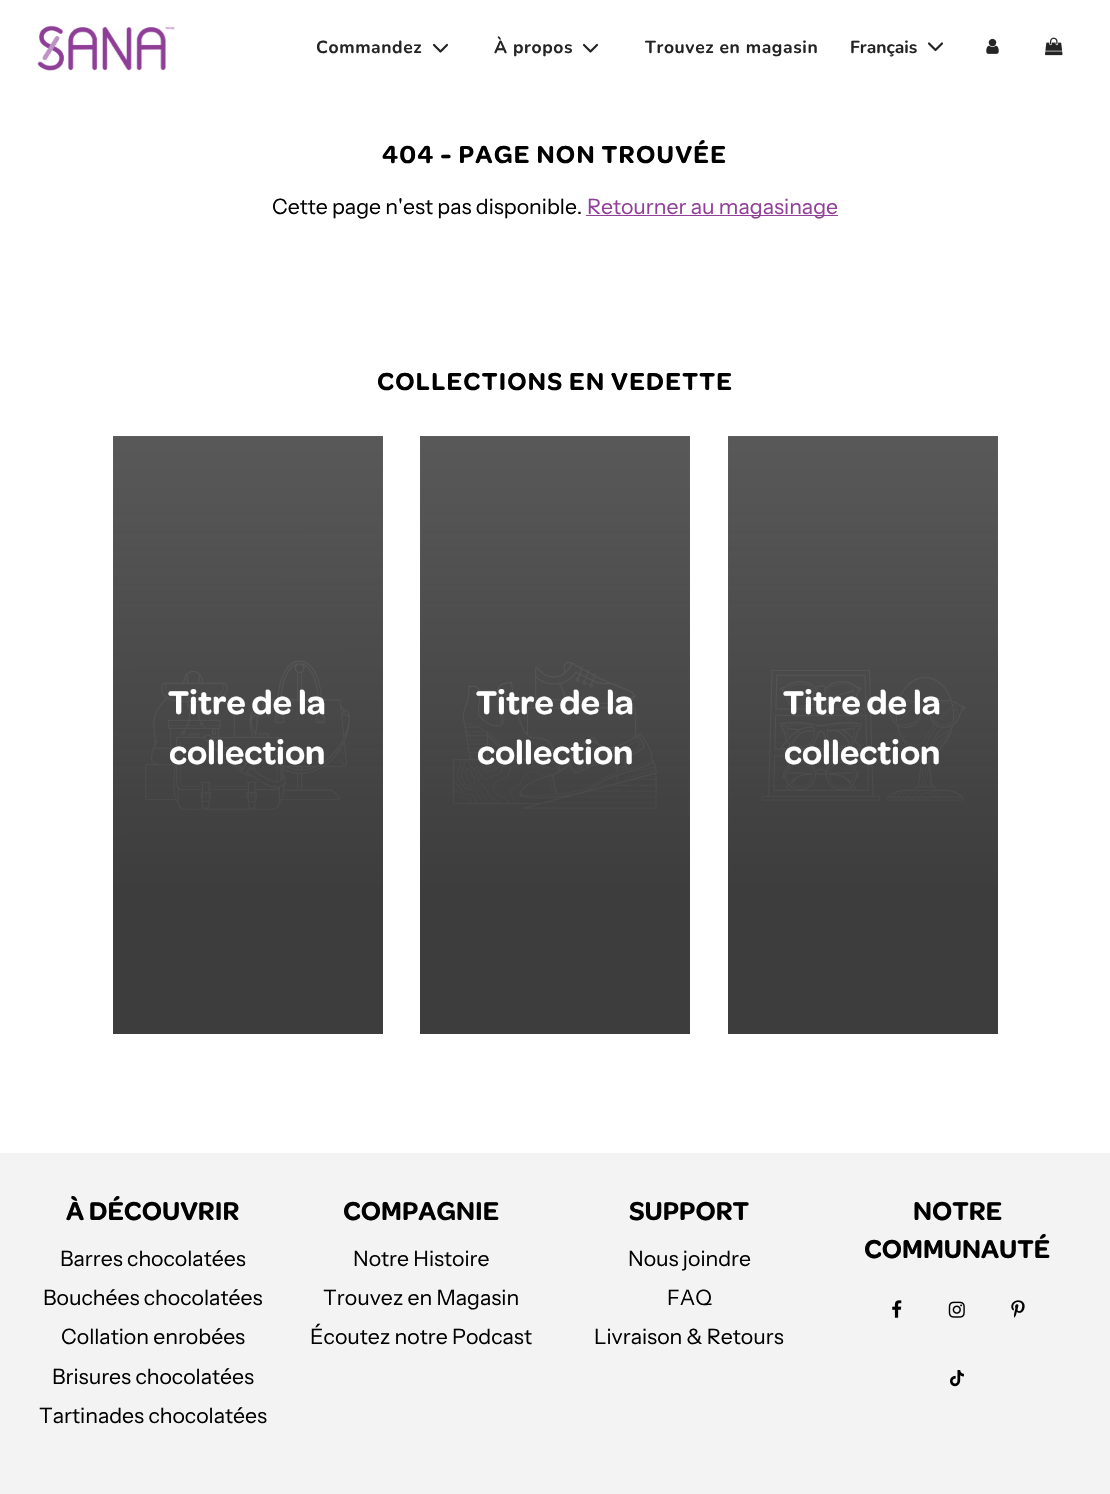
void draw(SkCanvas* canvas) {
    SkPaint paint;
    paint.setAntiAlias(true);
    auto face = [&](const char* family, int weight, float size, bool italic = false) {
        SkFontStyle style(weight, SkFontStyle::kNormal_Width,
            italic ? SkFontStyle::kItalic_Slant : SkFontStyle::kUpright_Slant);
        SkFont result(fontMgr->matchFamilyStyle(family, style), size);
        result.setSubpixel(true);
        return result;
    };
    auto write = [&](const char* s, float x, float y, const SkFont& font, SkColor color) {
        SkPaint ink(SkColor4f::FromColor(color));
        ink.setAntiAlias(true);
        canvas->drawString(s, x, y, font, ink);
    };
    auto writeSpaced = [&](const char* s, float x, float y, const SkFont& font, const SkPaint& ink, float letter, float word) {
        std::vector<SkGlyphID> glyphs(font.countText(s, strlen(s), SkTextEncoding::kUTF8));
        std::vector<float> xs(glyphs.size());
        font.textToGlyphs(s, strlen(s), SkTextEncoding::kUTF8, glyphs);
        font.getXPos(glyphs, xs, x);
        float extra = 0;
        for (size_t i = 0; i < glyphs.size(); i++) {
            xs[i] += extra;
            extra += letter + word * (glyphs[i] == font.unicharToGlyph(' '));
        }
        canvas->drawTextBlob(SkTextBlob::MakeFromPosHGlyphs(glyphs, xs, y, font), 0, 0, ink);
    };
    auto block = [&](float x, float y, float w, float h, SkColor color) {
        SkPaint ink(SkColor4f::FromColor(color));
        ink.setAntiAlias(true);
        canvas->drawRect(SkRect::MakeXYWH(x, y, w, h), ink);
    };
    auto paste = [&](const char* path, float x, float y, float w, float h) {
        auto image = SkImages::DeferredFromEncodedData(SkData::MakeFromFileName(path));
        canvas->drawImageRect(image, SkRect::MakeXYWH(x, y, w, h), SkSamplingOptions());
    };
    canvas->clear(SK_ColorWHITE);
    paste("pic1.png", 37, 25, 138, 46);
    auto kFont1 = face("Nunito", 700, 17.5f);
    paint.setColor(SkColorSetRGB(36, 36, 36));
    writeSpaced("Commandez", 316, 53, kFont1, paint, 0.6f, 0);
    paint.setStyle(SkPaint::kStroke_Style);
    paint.setStrokeWidth(2.2f);
    paint.setStrokeCap(SkPaint::kRound_Cap);
    paint.setStrokeJoin(SkPaint::kRound_Join);
    canvas->drawPath(SkPathBuilder().moveTo(434, 45).lineTo(440.5f, 51.5f).lineTo(447, 45).detach(), paint);
    paint.setStyle(SkPaint::kFill_Style);
    writeSpaced("À propos", 494, 53, kFont1, paint, 0.6f, 0);
    paint.setStyle(SkPaint::kStroke_Style);
    canvas->drawPath(SkPathBuilder().moveTo(584, 45).lineTo(590.5f, 51.5f).lineTo(597, 45).detach(), paint);
    paint.setStyle(SkPaint::kFill_Style);
    writeSpaced("Trouvez en magasin", 645, 53, kFont1, paint, 0.6f, 0);
    write("Français", 850, 53, kFont1, SkColorSetRGB(36, 36, 36));
    paint.setStyle(SkPaint::kStroke_Style);
    canvas->drawPath(SkPathBuilder().moveTo(929, 43.5f).lineTo(935.5f, 50).lineTo(942, 43.5f).detach(), paint);
    paste("pic2.png", 986, 38, 13, 16);
    paste("pic3.png", 1045, 37, 18, 19);
    auto kFont2 = face("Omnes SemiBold", 600, 26.25f);
    paint.setStyle(SkPaint::kFill_Style);
    paint.setColor(SK_ColorBLACK);
    writeSpaced("404 - PAGE NON TROUVÉE", 382, 163, kFont2, paint, 1.25f, 0);
    auto kFont3 = face("Instrument Sans", 400, 21.25f);
    write("Cette page n'est pas disponible.", 272, 214, kFont3, SK_ColorBLACK);
    block(586, 215, 252, 1, SkColorSetRGB(145, 63, 152));
    write("Retourner au magasinage", 587, 214, kFont3, SkColorSetRGB(145, 63, 152));
    writeSpaced("COLLECTIONS EN VEDETTE", 377, 390, kFont2, paint, 1.25f, 0);
    paint.setColor(SkColorSetRGB(105, 105, 105));
    canvas->drawRect(SkRect::MakeXYWH(113.5f, 436.5f, 269, 597), paint);
    paint.setStyle(SkPaint::kStroke_Style);
    paint.setStrokeWidth(1);
    paint.setStrokeCap(SkPaint::kButt_Cap);
    paint.setStrokeJoin(SkPaint::kMiter_Join);
    paint.setColor(SkColorSetRGB(108, 110, 111));
    canvas->drawRect(SkRect::MakeXYWH(113.5f, 436.5f, 269, 597), paint);
    paste("pic4.png", 145, 660, 205, 150);
    paint.setStyle(SkPaint::kFill_Style);
    {
        const SkColor colors[] = {SkColorSetARGB(77, 50, 50, 50), SkColorSetARGB(204, 50, 50, 50)};
        const float stops[] = {0, 0.75f};
        const SkPoint ends[] = {{247, 436}, {248, 1034}};
        paint.setShader(SkGradientShader::MakeLinear(ends, colors, stops, 2, SkTileMode::kClamp));
        paint.setAlpha(255);
    }
    canvas->drawRect(SkRect::MakeXYWH(113, 436, 270, 598), paint);
    auto kFont4 = face("Omnes SemiBold", 600, 35);
    write("Titre de la", 168, 714, kFont4, SK_ColorWHITE);
    write("collection", 169, 764, kFont4, SK_ColorWHITE);
    paint.setShader(nullptr);
    paint.setColor(SkColorSetRGB(105, 105, 105));
    canvas->drawRect(SkRect::MakeXYWH(420.5f, 436.5f, 269, 597), paint);
    paint.setStyle(SkPaint::kStroke_Style);
    paint.setColor(SkColorSetRGB(108, 110, 111));
    canvas->drawRect(SkRect::MakeXYWH(420.5f, 436.5f, 269, 597), paint);
    paste("pic5.png", 452, 662, 205, 147);
    paint.setStyle(SkPaint::kFill_Style);
    {
        const SkColor colors[] = {SkColorSetARGB(77, 50, 50, 50), SkColorSetARGB(204, 50, 50, 50)};
        const float stops[] = {0, 0.75f};
        const SkPoint ends[] = {{555, 436}, {555, 1034}};
        paint.setShader(SkGradientShader::MakeLinear(ends, colors, stops, 2, SkTileMode::kClamp));
        paint.setAlpha(255);
    }
    canvas->drawRect(SkRect::MakeXYWH(420, 436, 270, 598), paint);
    write("Titre de la", 476, 714, kFont4, SK_ColorWHITE);
    write("collection", 477, 764, kFont4, SK_ColorWHITE);
    paint.setShader(nullptr);
    paint.setColor(SkColorSetRGB(105, 105, 105));
    canvas->drawRect(SkRect::MakeXYWH(728.5f, 436.5f, 269, 597), paint);
    paint.setStyle(SkPaint::kStroke_Style);
    paint.setColor(SkColorSetRGB(108, 110, 111));
    canvas->drawRect(SkRect::MakeXYWH(728.5f, 436.5f, 269, 597), paint);
    paste("pic6.png", 761, 670, 205, 131);
    paint.setStyle(SkPaint::kFill_Style);
    {
        const SkColor colors[] = {SkColorSetARGB(77, 50, 50, 50), SkColorSetARGB(204, 50, 50, 50)};
        const float stops[] = {0, 0.75f};
        const SkPoint ends[] = {{863, 436}, {863, 1034}};
        paint.setShader(SkGradientShader::MakeLinear(ends, colors, stops, 2, SkTileMode::kClamp));
        paint.setAlpha(255);
    }
    canvas->drawRect(SkRect::MakeXYWH(728, 436, 270, 598), paint);
    write("Titre de la", 783, 714, kFont4, SK_ColorWHITE);
    write("collection", 784, 764, kFont4, SK_ColorWHITE);
    block(0, 1153, 1110, 341, SkColorSetRGB(243, 243, 243));
    auto kFont5 = face("Omnes SemiBold", 600, 27.5f);
    write("À DÉCOUVRIR", 66, 1220, kFont5, SK_ColorBLACK);
    write("Barres chocolatées", 60, 1266, kFont3, SK_ColorBLACK);
    write("Bouchées chocolatées", 43, 1305, kFont3, SK_ColorBLACK);
    write("Collation enrobées", 61, 1344, kFont3, SK_ColorBLACK);
    write("Brisures chocolatées", 52, 1384, kFont3, SK_ColorBLACK);
    write("Tartinades chocolatées", 39, 1423, kFont3, SK_ColorBLACK);
    write("COMPAGNIE", 343, 1220, kFont5, SK_ColorBLACK);
    write("Notre Histoire", 353, 1266, kFont3, SK_ColorBLACK);
    write("Trouvez en Magasin", 323, 1305, kFont3, SK_ColorBLACK);
    write("Écoutez notre Podcast", 310, 1344, kFont3, SK_ColorBLACK);
    write("SUPPORT", 629, 1220, kFont5, SK_ColorBLACK);
    write("Nous joindre", 628, 1266, kFont3, SK_ColorBLACK);
    write("FAQ", 667, 1305, kFont3, SK_ColorBLACK);
    write("Livraison & Retours", 594, 1344, kFont3, SK_ColorBLACK);
    write("NOTRE", 913, 1220, kFont5, SK_ColorBLACK);
    write("COMMUNAUTÉ", 864, 1258, kFont5, SK_ColorBLACK);
    paste("pic7.png", 892, 1300, 10, 18);
    paste("pic8.png", 948, 1301, 17, 17);
    paste("pic9.png", 1011, 1300, 14, 18);
    paste("pic10.png", 950, 1370, 14, 17);
}
